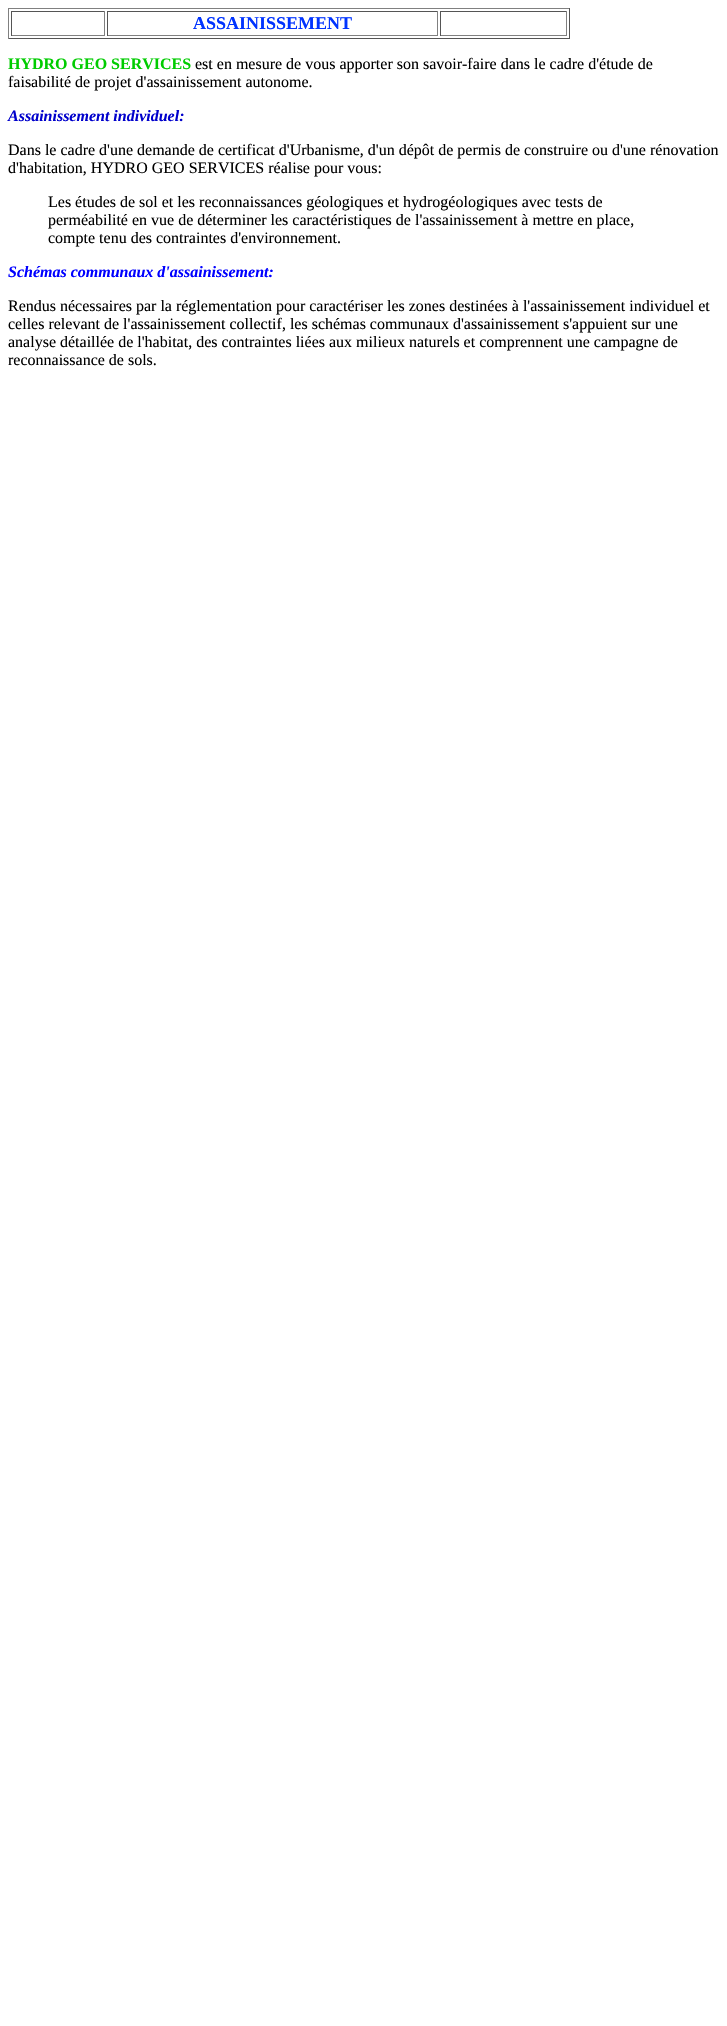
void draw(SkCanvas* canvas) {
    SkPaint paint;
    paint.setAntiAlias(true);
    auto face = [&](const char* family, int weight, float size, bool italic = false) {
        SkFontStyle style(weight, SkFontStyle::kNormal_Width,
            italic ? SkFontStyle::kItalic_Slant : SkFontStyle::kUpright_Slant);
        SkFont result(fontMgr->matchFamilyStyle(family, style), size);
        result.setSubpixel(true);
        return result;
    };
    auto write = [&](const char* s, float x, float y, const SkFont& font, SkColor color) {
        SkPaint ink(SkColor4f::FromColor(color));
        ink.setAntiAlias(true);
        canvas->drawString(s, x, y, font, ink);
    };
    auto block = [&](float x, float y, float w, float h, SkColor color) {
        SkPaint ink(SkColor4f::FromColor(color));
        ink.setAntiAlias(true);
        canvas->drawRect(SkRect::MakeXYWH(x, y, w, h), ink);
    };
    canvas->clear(SK_ColorWHITE);
    block(8, 8, 562, 1, SkColorSetRGB(128, 128, 128));
    block(569, 8, 1, 31, SkColorSetRGB(85, 85, 85));
    block(8, 38, 562, 1, SkColorSetRGB(85, 85, 85));
    block(8, 8, 1, 31, SkColorSetRGB(128, 128, 128));
    block(11, 11, 94, 1, SkColorSetRGB(85, 85, 85));
    block(104, 11, 1, 25, SkColorSetRGB(128, 128, 128));
    block(11, 35, 94, 1, SkColorSetRGB(128, 128, 128));
    block(11, 11, 1, 25, SkColorSetRGB(85, 85, 85));
    block(107, 11, 331, 1, SkColorSetRGB(85, 85, 85));
    block(437, 11, 1, 25, SkColorSetRGB(128, 128, 128));
    block(107, 35, 331, 1, SkColorSetRGB(128, 128, 128));
    block(107, 11, 1, 25, SkColorSetRGB(85, 85, 85));
    auto kFont1 = face("Liberation Serif", 700, 18);
    write("ASSAINISSEMENT", 193, 29, kFont1, SkColorSetRGB(0, 51, 255));
    block(440, 11, 127, 1, SkColorSetRGB(85, 85, 85));
    block(566, 11, 1, 25, SkColorSetRGB(128, 128, 128));
    block(440, 35, 127, 1, SkColorSetRGB(128, 128, 128));
    block(440, 11, 1, 25, SkColorSetRGB(85, 85, 85));
    auto kFont2 = face("Liberation Serif", 700, 16);
    write("HYDRO GEO SERVICES", 8, 69, kFont2, SkColorSetRGB(0, 204, 0));
    auto kFont3 = face("Liberation Serif", 400, 16);
    write("est en mesure de vous apporter son savoir-faire dans le cadre d'étude de", 195, 69, kFont3, SK_ColorBLACK);
    write("faisabilité de projet d'assainissement autonome.", 8, 87, kFont3, SK_ColorBLACK);
    auto kFont4 = face("Liberation Serif", 700, 16, true);
    write("Assainissement individuel:", 8, 121, kFont4, SkColorSetRGB(0, 0, 204));
    write("Dans le cadre d'une demande de certificat d'Urbanisme, d'un dépôt de permis de construire ou d'une rénovation", 8, 155, kFont3, SK_ColorBLACK);
    write("d'habitation, HYDRO GEO SERVICES réalise pour vous:", 8, 173, kFont3, SK_ColorBLACK);
    write("Les études de sol et les reconnaissances géologiques et hydrogéologiques avec tests de", 48, 207, kFont3, SK_ColorBLACK);
    write("perméabilité en vue de déterminer les caractéristiques de l'assainissement à mettre en place,", 48, 225, kFont3, SK_ColorBLACK);
    write("compte tenu des contraintes d'environnement.", 48, 243, kFont3, SK_ColorBLACK);
    write("Schémas communaux d'assainissement:", 8, 277, kFont4, SkColorSetRGB(0, 0, 255));
    write("Rendus nécessaires par la réglementation pour caractériser les zones destinées à l'assainissement individuel et", 8, 311, kFont3, SK_ColorBLACK);
    write("celles relevant de l'assainissement collectif, les schémas communaux d'assainissement s'appuient sur une", 8, 329, kFont3, SK_ColorBLACK);
    write("analyse détaillée de l'habitat, des contraintes liées aux milieux naturels et comprennent une campagne de", 8, 347, kFont3, SK_ColorBLACK);
    write("reconnaissance de sols.", 8, 365, kFont3, SK_ColorBLACK);
}
